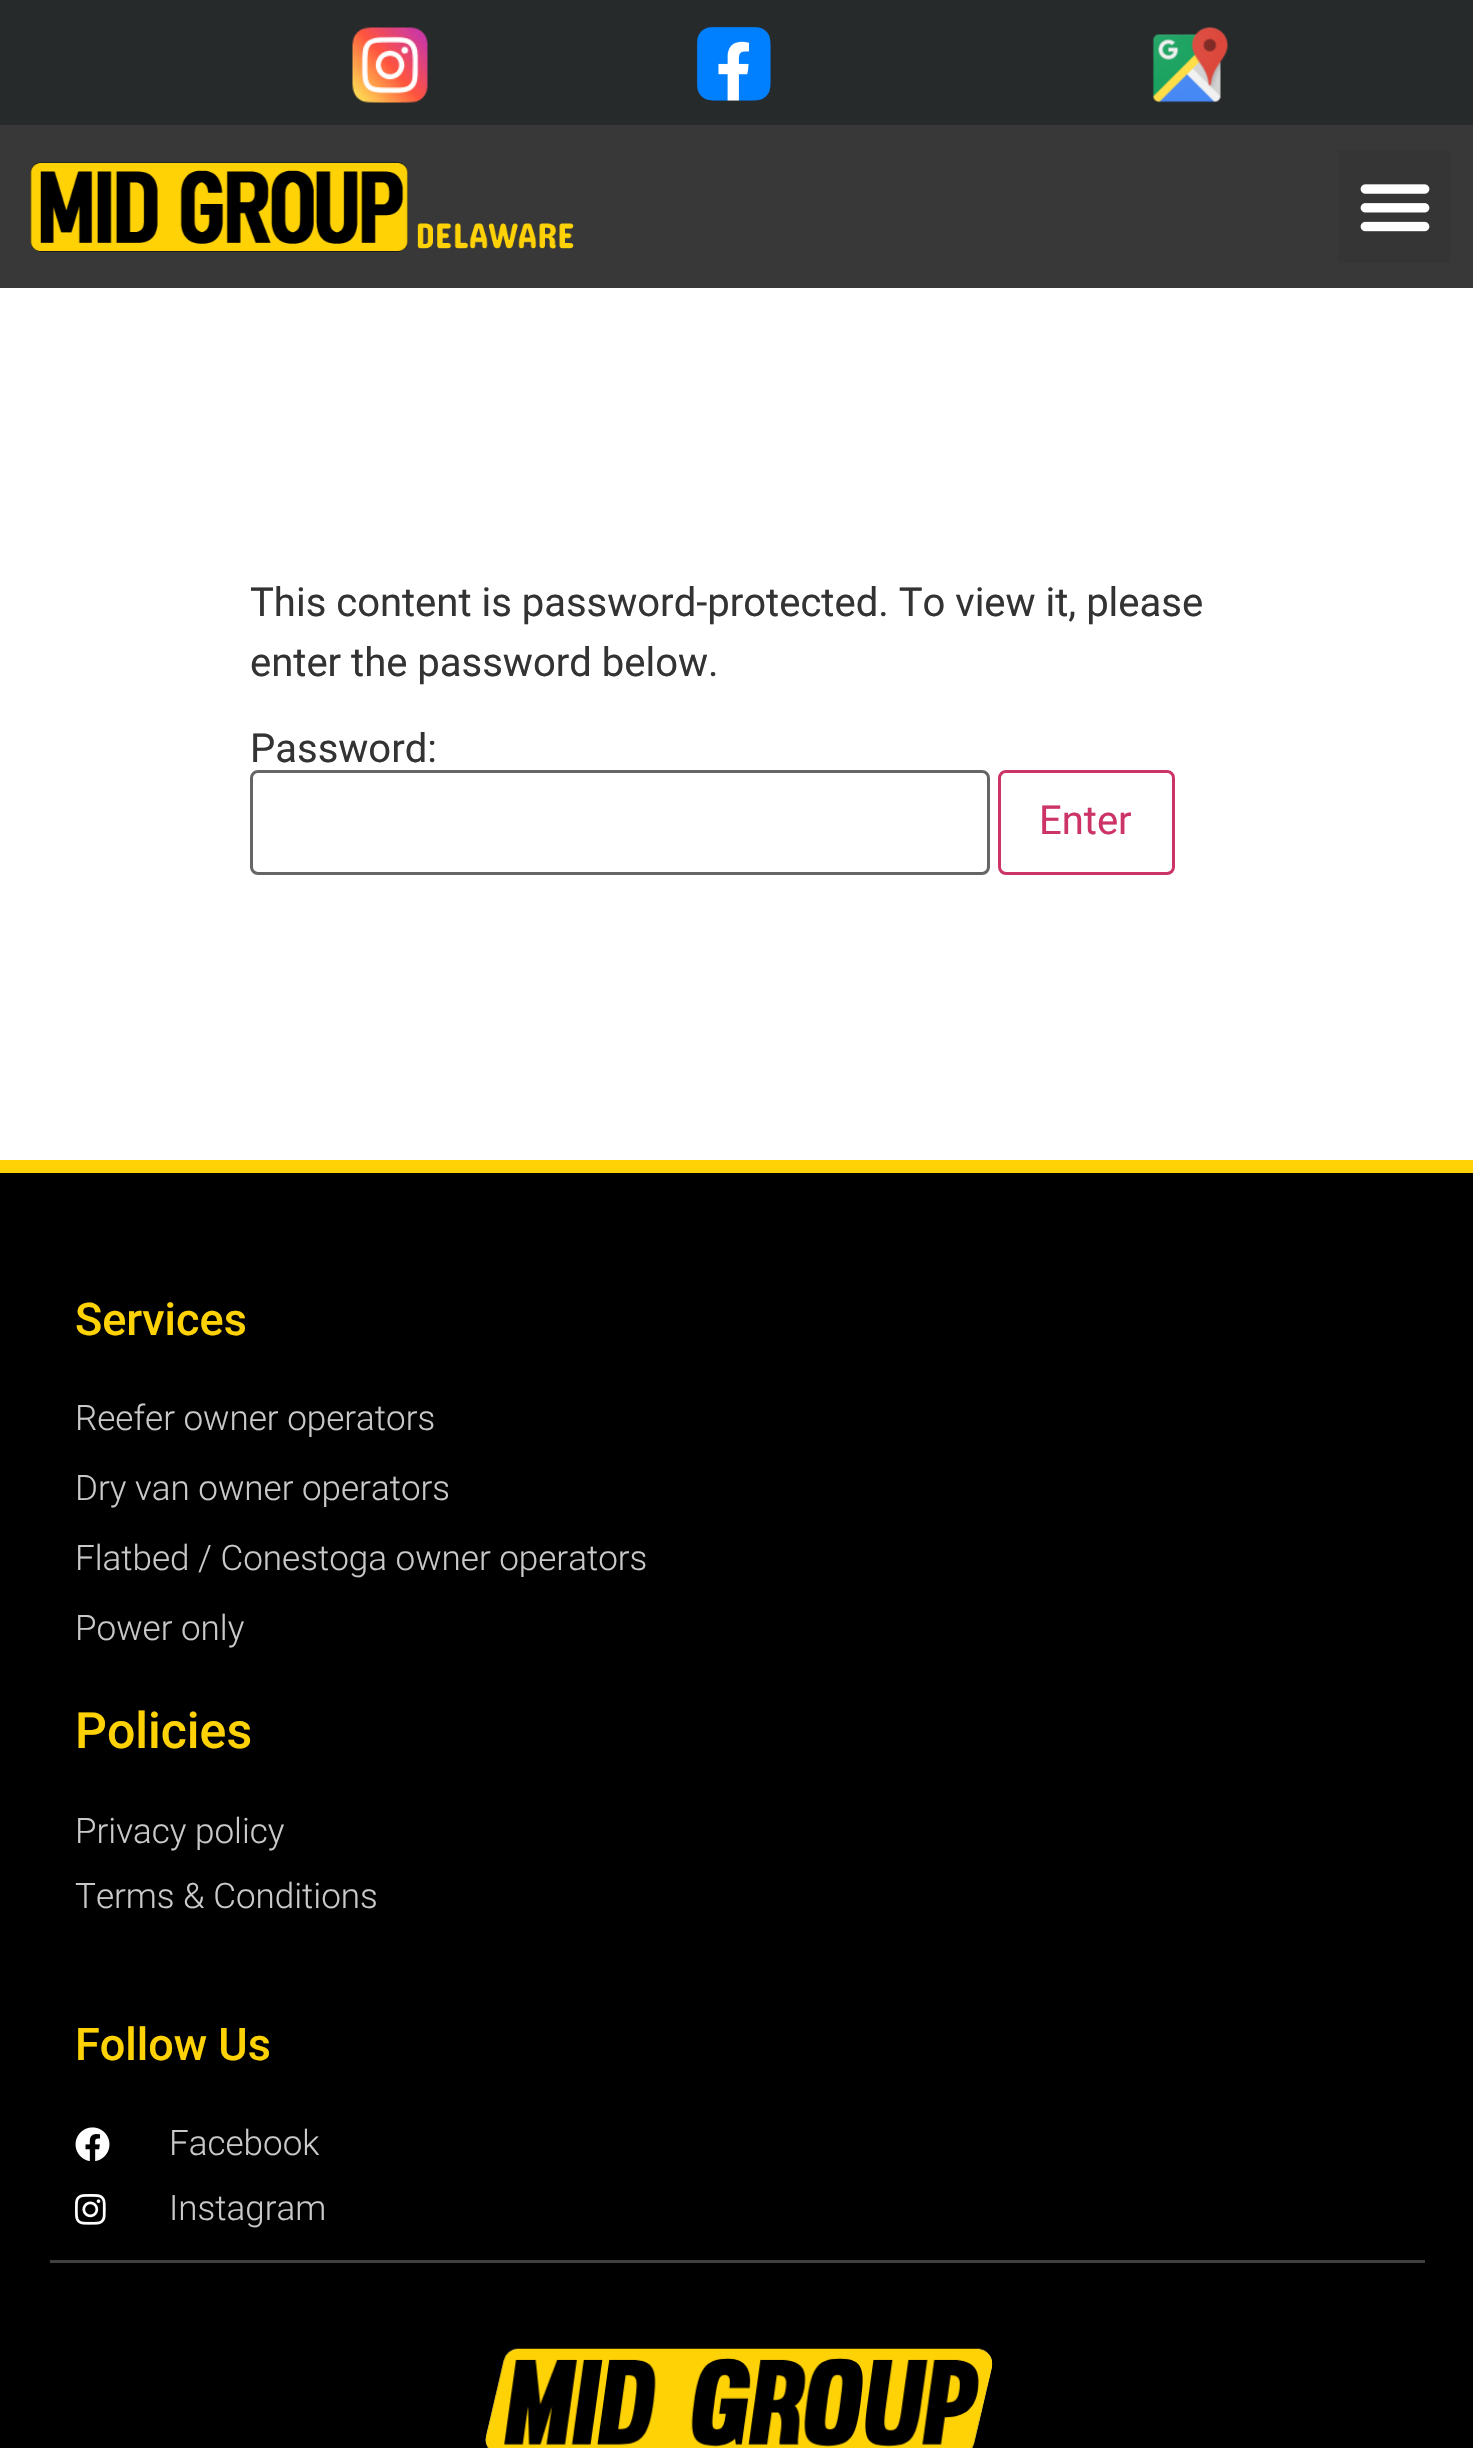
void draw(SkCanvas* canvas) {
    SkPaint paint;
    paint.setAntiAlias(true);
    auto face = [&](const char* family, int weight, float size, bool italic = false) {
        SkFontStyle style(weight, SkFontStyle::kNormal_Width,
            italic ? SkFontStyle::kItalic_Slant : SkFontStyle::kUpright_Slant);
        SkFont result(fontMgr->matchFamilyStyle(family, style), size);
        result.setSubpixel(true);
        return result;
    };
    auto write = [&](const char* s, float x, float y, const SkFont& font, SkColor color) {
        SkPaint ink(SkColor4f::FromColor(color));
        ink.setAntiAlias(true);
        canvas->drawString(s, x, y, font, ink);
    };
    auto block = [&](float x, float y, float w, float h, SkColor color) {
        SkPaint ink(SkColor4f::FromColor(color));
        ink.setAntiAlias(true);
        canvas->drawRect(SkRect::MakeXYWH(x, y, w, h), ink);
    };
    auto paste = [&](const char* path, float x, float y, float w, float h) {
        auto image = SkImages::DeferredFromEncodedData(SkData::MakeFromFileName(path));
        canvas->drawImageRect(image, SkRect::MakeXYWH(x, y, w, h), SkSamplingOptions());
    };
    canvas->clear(SK_ColorWHITE);
    block(0, 0, 1473, 125, SkColorSetRGB(38, 42, 43));
    paste("pic1.png", 352, 27, 76, 76);
    paste("pic2.png", 696, 26, 75, 75);
    paste("pic3.png", 1152, 27, 76, 76);
    block(0, 125, 1473, 163, SkColorSetRGB(56, 56, 56));
    paste("pic4.png", 30, 162, 544, 90);
    block(1338, 150, 112, 113, SkColorSetRGB(53, 53, 53));
    paste("pic5.png", 1360, 184, 70, 48);
    auto kFont1 = face("Roboto", 400, 40);
    write("This content is password-protected. To view it, please", 250, 616, kFont1, SkColorSetRGB(51, 51, 51));
    write("enter the password below.", 250, 676, kFont1, SkColorSetRGB(51, 51, 51));
    write("Password:", 250, 762, kFont1, SkColorSetRGB(51, 51, 51));
    paint.setStyle(SkPaint::kStroke_Style);
    paint.setStrokeWidth(3);
    paint.setColor(SkColorSetRGB(102, 102, 102));
    canvas->drawRoundRect(SkRect::MakeXYWH(251.5f, 771.5f, 737, 102), 6.5f, 6.5f, paint);
    paint.setColor(SkColorSetRGB(204, 51, 102));
    canvas->drawRoundRect(SkRect::MakeXYWH(999.5f, 771.5f, 174, 102), 6.5f, 6.5f, paint);
    write("Enter", 1039, 834, kFont1, SkColorSetRGB(204, 51, 102));
    block(0, 1173, 1473, 1275, SK_ColorBLACK);
    block(0, 1160, 1473, 13, SkColorSetRGB(255, 210, 6));
    auto kFont2 = face("Roboto", 500, 45);
    write("Services", 75, 1335, kFont2, SkColorSetRGB(255, 210, 6));
    auto kFont3 = face("Roboto", 300, 35);
    write("Reefer owner operators", 75, 1430, kFont3, SkColorSetRGB(201, 201, 201));
    write("Dry van owner operators", 75, 1500, kFont3, SkColorSetRGB(201, 201, 201));
    write("Flatbed / Conestoga owner operators", 75, 1570, kFont3, SkColorSetRGB(201, 201, 201));
    write("Power only", 75, 1640, kFont3, SkColorSetRGB(201, 201, 201));
    auto kFont4 = face("Roboto", 500, 50);
    write("Policies", 75, 1748, kFont4, SkColorSetRGB(255, 210, 6));
    write("Privacy policy", 75, 1843, kFont3, SkColorSetRGB(201, 201, 201));
    write("Terms & Conditions", 75, 1908, kFont3, SkColorSetRGB(201, 201, 201));
    write("Follow Us", 75, 2060, kFont2, SkColorSetRGB(255, 210, 6));
    paste("pic6.png", 75, 2127, 35, 35);
    write("Facebook", 169, 2155, kFont3, SkColorSetRGB(201, 201, 201));
    paste("pic7.png", 75, 2194, 31, 31);
    write("Instagram", 169, 2220, kFont3, SkColorSetRGB(201, 201, 201));
    block(50, 2260, 1375, 3, SkColorSetRGB(64, 64, 64));
    paste("pic8.png", 485, 2348, 508, 100);
}
